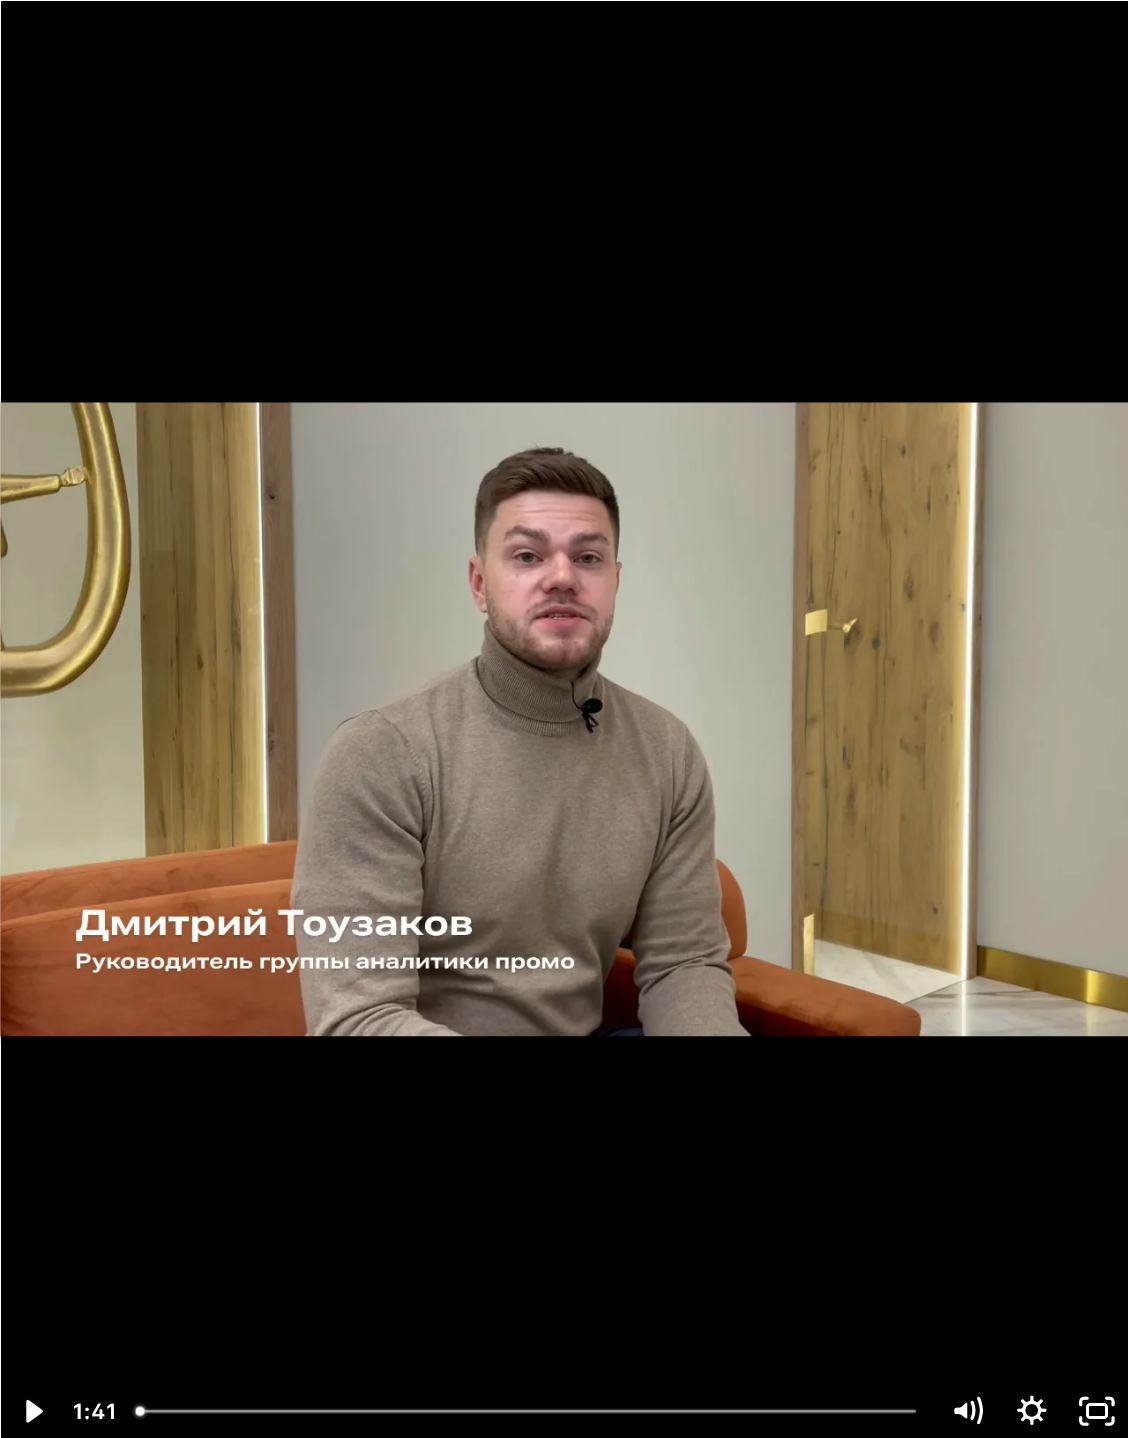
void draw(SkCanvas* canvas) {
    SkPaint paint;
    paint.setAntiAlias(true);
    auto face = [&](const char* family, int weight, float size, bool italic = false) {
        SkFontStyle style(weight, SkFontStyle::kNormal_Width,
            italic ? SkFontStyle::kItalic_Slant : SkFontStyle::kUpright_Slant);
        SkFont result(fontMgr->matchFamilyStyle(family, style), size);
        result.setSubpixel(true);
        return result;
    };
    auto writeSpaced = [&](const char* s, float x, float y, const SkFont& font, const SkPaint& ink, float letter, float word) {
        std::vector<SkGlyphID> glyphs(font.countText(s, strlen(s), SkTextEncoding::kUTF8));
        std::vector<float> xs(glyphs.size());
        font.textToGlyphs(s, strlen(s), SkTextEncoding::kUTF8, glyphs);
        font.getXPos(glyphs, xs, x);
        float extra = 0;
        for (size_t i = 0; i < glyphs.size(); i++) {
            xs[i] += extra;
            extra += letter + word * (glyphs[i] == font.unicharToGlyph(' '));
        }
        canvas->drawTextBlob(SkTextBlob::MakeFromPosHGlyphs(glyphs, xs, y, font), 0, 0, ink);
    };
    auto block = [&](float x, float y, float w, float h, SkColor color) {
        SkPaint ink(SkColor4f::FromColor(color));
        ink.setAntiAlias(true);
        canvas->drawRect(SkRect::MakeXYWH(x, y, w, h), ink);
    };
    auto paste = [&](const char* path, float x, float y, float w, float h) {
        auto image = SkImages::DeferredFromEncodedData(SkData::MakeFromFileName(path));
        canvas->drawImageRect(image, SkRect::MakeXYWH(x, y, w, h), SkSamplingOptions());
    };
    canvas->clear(SK_ColorWHITE);
    paste("pic1.png", 0, 393, 1, 653);
    block(1, 1, 1127, 1437, SK_ColorBLACK);
    paste("pic3.png", 0, 396, 1, 647);
    paste("pic2.png", 0, 402, 1128, 635);
    paste("pic4.png", 26, 1399, 17, 24);
    auto kFont1 = face("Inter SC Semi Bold", 600, 21);
    paint.setColor(SK_ColorWHITE);
    writeSpaced("1:41", 73, 1419, kFont1, paint, 1, 0);
    paste("pic5.png", 131, 1402, 786, 18);
    paste("pic6.png", 954, 1396, 29, 29);
    paste("pic7.png", 1017, 1395, 30, 30);
    paste("pic8.png", 1079, 1396, 36, 30);
}
